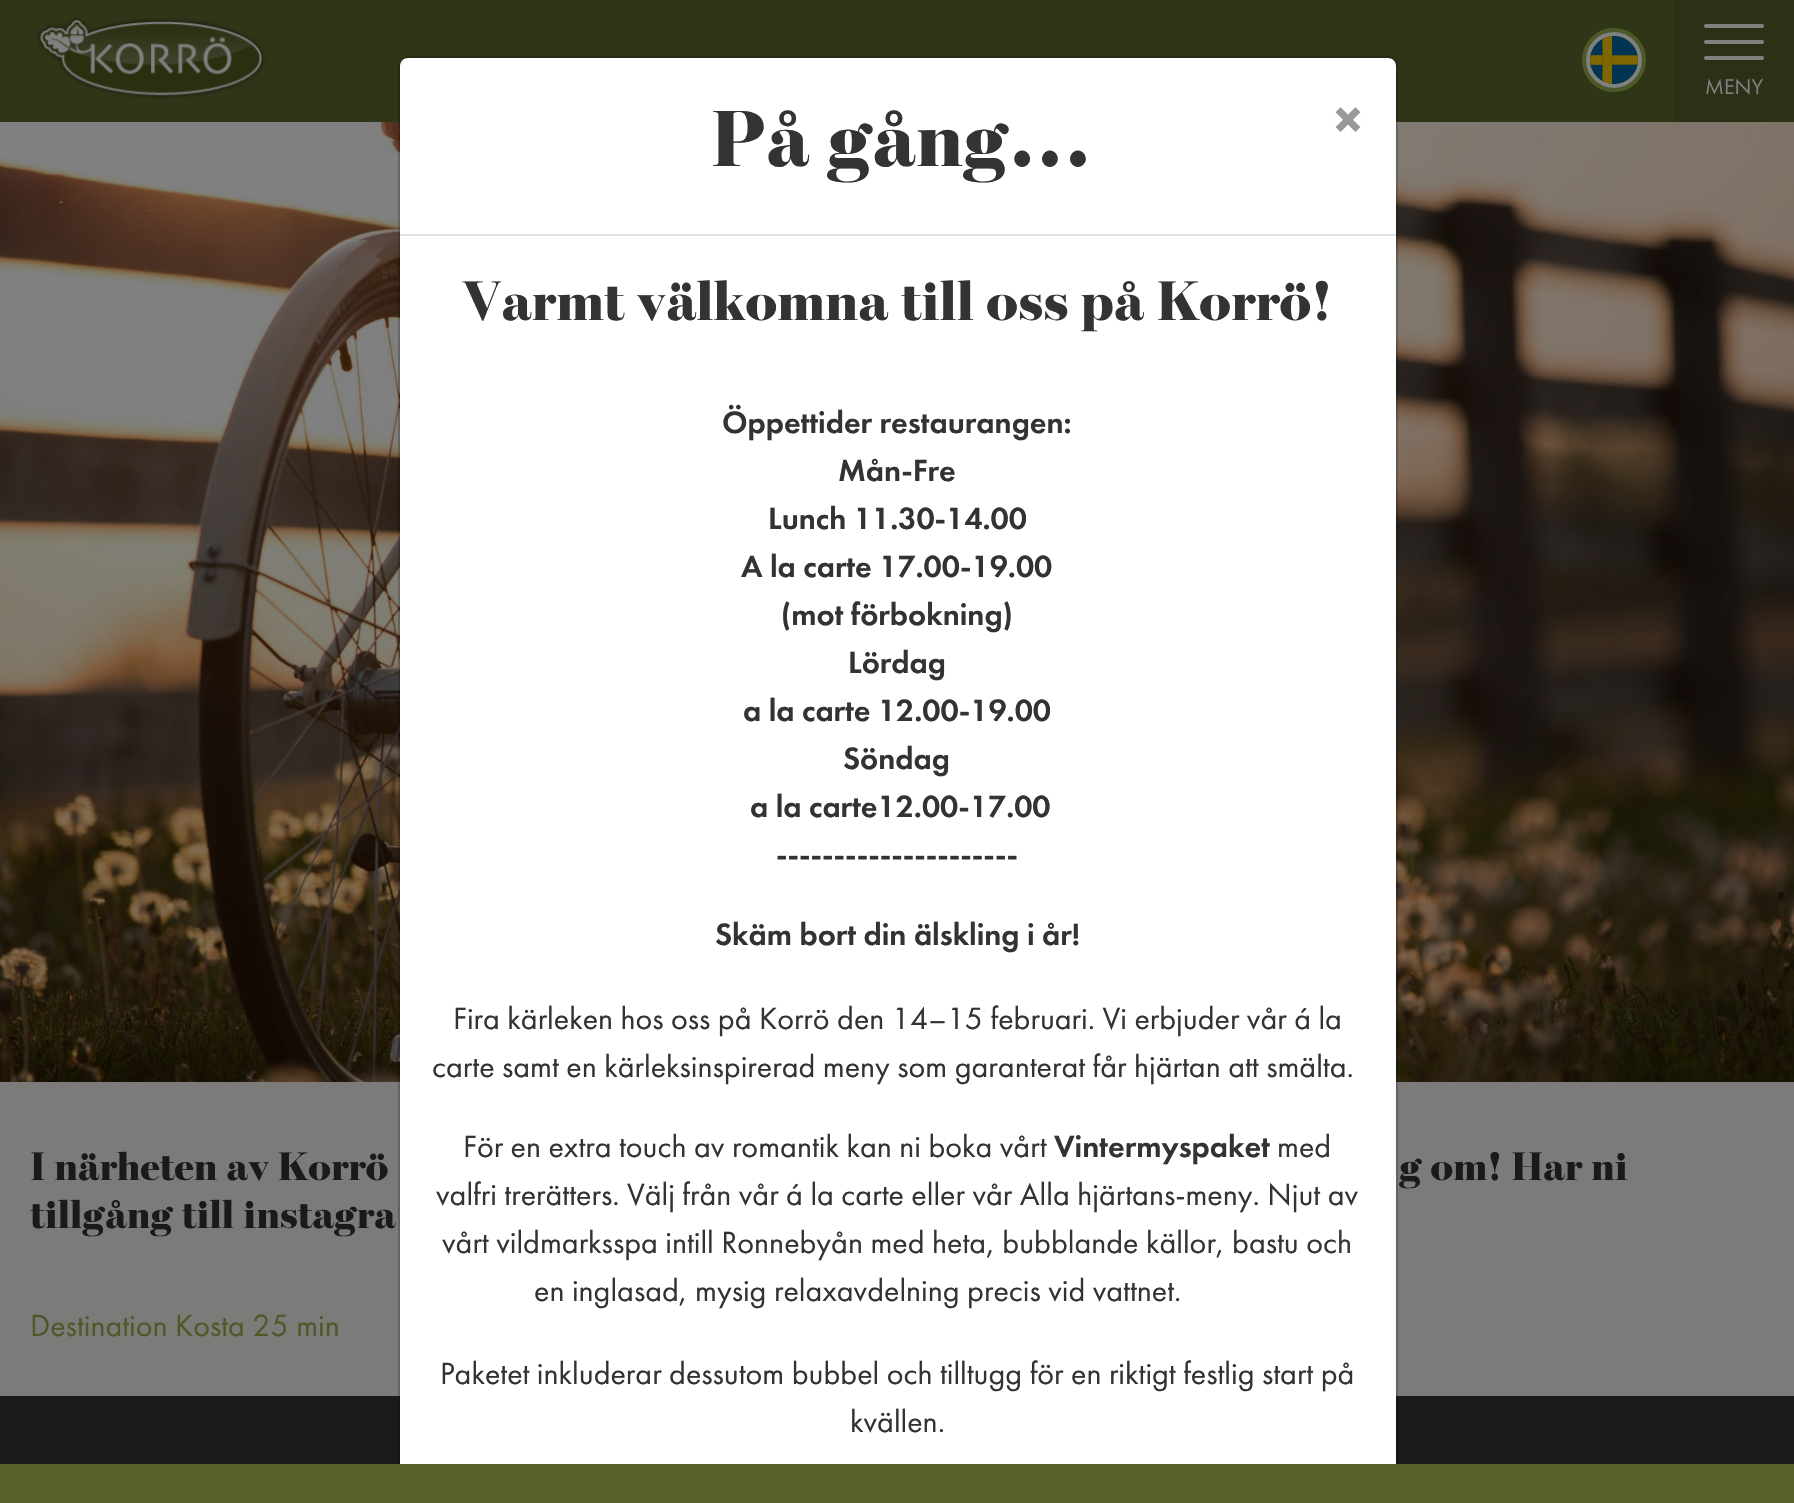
void draw(SkCanvas* canvas) {
    SkPaint paint;
    paint.setAntiAlias(true);
    auto face = [&](const char* family, int weight, float size, bool italic = false) {
        SkFontStyle style(weight, SkFontStyle::kNormal_Width,
            italic ? SkFontStyle::kItalic_Slant : SkFontStyle::kUpright_Slant);
        SkFont result(fontMgr->matchFamilyStyle(family, style), size);
        result.setSubpixel(true);
        return result;
    };
    auto write = [&](const char* s, float x, float y, const SkFont& font, SkColor color) {
        SkPaint ink(SkColor4f::FromColor(color));
        ink.setAntiAlias(true);
        canvas->drawString(s, x, y, font, ink);
    };
    auto block = [&](float x, float y, float w, float h, SkColor color) {
        SkPaint ink(SkColor4f::FromColor(color));
        ink.setAntiAlias(true);
        canvas->drawRect(SkRect::MakeXYWH(x, y, w, h), ink);
    };
    auto card = [&](float x, float y, float w, float h, float radius, SkColor color) {
        SkPaint ink(SkColor4f::FromColor(color));
        ink.setAntiAlias(true);
        canvas->drawRoundRect(SkRect::MakeXYWH(x, y, w, h), radius, radius, ink);
    };
    auto paste = [&](const char* path, float x, float y, float w, float h) {
        auto image = SkImages::DeferredFromEncodedData(SkData::MakeFromFileName(path));
        canvas->drawImageRect(image, SkRect::MakeXYWH(x, y, w, h), SkSamplingOptions());
    };
    canvas->clear(SkColorSetRGB(124, 123, 122));
    block(0, 0, 1674, 122, SkColorSetRGB(47, 54, 24));
    paste("pic1.png", 36, 16, 230, 84);
    paint.setStyle(SkPaint::kStroke_Style);
    paint.setStrokeWidth(4);
    paint.setColor(SkColorSetRGB(78, 89, 40));
    canvas->drawCircle(1614, 60, 30, paint);
    paint.setColor(SkColorSetRGB(128, 128, 128));
    canvas->drawCircle(1614, 60, 26, paint);
    paste("pic2.png", 1590, 36, 48, 48);
    block(1674, 0, 120, 122, SkColorSetRGB(43, 48, 22));
    card(1704, 40, 60, 4, 2, SkColorSetRGB(128, 128, 128));
    card(1704, 24, 60, 4, 2, SkColorSetRGB(128, 128, 128));
    card(1704, 56, 60, 4, 2, SkColorSetRGB(128, 128, 128));
    auto kFont1 = face("Futura PT", 400, 22);
    write("MENY", 1705, 94, kFont1, SkColorSetRGB(128, 128, 128));
    paste("pic3.png", 0, 122, 1794, 960);
    auto kFont2 = face("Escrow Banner", 900, 40);
    write("I närheten av Korrö", 30, 1180, kFont2, SkColorSetRGB(26, 26, 26));
    write("g om! Har ni", 1399, 1180, kFont2, SkColorSetRGB(26, 26, 26));
    write("tillgång till instagra", 30, 1228, kFont2, SkColorSetRGB(26, 26, 26));
    auto kFont3 = face("Futura PT", 400, 32);
    write("Destination Kosta 25 min", 30, 1336, kFont3, SkColorSetRGB(78, 89, 40));
    block(0, 1396, 1794, 68, SkColorSetRGB(26, 26, 26));
    paint.setStyle(SkPaint::kFill_Style);
    paint.setColor(SK_ColorWHITE);
    canvas->drawPath(SkPathBuilder().moveTo(408, 58).lineTo(1388, 58).cubicTo(1392.5f, 58, 1396, 61.5f, 1396, 66).lineTo(1396, 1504).lineTo(400, 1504).lineTo(400, 66).cubicTo(400, 61.5f, 403.5f, 58, 408, 58).close().detach(), paint);
    paint.setStyle(SkPaint::kStroke_Style);
    paint.setStrokeWidth(2);
    paint.setColor(SkColorSetARGB(51, 0, 0, 0));
    canvas->drawRoundRect(SkRect::MakeXYWH(399, 57, 998, 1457), 9, 9, paint);
    block(400, 234, 996, 2, SkColorSetRGB(222, 226, 230));
    auto kFont4 = face("Escrow Banner", 900, 80);
    write("På gång...", 711, 166, kFont4, SkColorSetRGB(51, 51, 51));
    auto kFont5 = face("Futura PT", 500, 60);
    write("×", 1333, 140, kFont5, SkColorSetRGB(153, 153, 153));
    auto kFont6 = face("Escrow Banner", 900, 56);
    write("Varmt välkomna till oss på Korrö!", 462, 320, kFont6, SkColorSetRGB(51, 51, 51));
    auto kFont7 = face("Futura PT", 500, 32);
    write("Öppettider restaurangen:", 722, 433, kFont7, SkColorSetRGB(51, 51, 51));
    write("Mån-Fre", 838, 481, kFont7, SkColorSetRGB(51, 51, 51));
    write("Lunch 11.30-14.00", 768, 529, kFont7, SkColorSetRGB(51, 51, 51));
    write("A la carte 17.00-19.00", 741, 577, kFont7, SkColorSetRGB(51, 51, 51));
    write("(mot förbokning)", 781, 625, kFont7, SkColorSetRGB(51, 51, 51));
    write("Lördag", 848, 673, kFont7, SkColorSetRGB(51, 51, 51));
    write("a la carte 12.00-19.00", 743, 721, kFont7, SkColorSetRGB(51, 51, 51));
    write("Söndag", 843, 769, kFont7, SkColorSetRGB(51, 51, 51));
    write("a la carte12.00-17.00", 750, 817, kFont7, SkColorSetRGB(51, 51, 51));
    write("---------------------", 776, 865, kFont7, SkColorSetRGB(51, 51, 51));
    write("Skäm bort din älskling i år!", 715, 945, kFont7, SkColorSetRGB(51, 51, 51));
    write("Fira kärleken hos oss på Korrö den 14–15 februari. Vi erbjuder vår á la", 453, 1029, kFont3, SkColorSetRGB(51, 51, 51));
    write("carte samt en kärleksinspirerad meny som garanterat får hjärtan att smälta.", 432, 1077, kFont3, SkColorSetRGB(51, 51, 51));
    write("För en extra touch av romantik kan ni boka vårt", 463, 1157, kFont3, SkColorSetRGB(51, 51, 51));
    write("Vintermyspaket", 1054, 1157, kFont7, SkColorSetRGB(51, 51, 51));
    write("med", 1277, 1157, kFont3, SkColorSetRGB(51, 51, 51));
    write("valfri trerätters. Välj från vår á la carte eller vår Alla hjärtans-meny. Njut av", 436, 1205, kFont3, SkColorSetRGB(51, 51, 51));
    write("vårt vildmarksspa intill Ronnebyån med heta, bubblande källor, bastu och", 442, 1253, kFont3, SkColorSetRGB(51, 51, 51));
    write("en inglasad, mysig relaxavdelning precis vid vattnet.", 534, 1301, kFont3, SkColorSetRGB(51, 51, 51));
    write("Paketet inkluderar dessutom bubbel och tilltugg för en riktigt festlig start på", 440, 1384, kFont3, SkColorSetRGB(51, 51, 51));
    write("kvällen.", 850, 1432, kFont3, SkColorSetRGB(51, 51, 51));
    block(0, 1464, 1794, 39, SkColorSetRGB(85, 96, 43));
}
